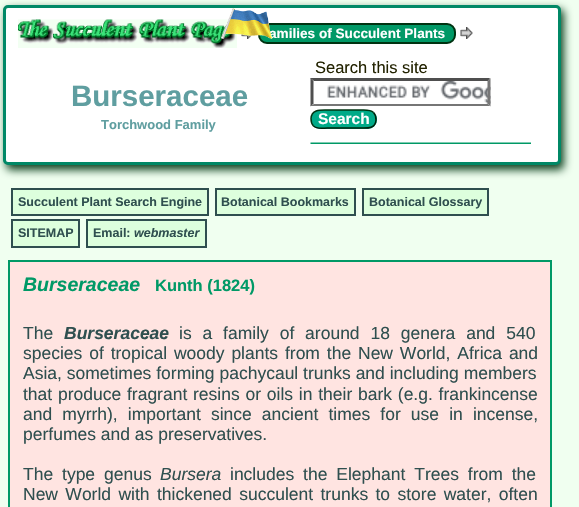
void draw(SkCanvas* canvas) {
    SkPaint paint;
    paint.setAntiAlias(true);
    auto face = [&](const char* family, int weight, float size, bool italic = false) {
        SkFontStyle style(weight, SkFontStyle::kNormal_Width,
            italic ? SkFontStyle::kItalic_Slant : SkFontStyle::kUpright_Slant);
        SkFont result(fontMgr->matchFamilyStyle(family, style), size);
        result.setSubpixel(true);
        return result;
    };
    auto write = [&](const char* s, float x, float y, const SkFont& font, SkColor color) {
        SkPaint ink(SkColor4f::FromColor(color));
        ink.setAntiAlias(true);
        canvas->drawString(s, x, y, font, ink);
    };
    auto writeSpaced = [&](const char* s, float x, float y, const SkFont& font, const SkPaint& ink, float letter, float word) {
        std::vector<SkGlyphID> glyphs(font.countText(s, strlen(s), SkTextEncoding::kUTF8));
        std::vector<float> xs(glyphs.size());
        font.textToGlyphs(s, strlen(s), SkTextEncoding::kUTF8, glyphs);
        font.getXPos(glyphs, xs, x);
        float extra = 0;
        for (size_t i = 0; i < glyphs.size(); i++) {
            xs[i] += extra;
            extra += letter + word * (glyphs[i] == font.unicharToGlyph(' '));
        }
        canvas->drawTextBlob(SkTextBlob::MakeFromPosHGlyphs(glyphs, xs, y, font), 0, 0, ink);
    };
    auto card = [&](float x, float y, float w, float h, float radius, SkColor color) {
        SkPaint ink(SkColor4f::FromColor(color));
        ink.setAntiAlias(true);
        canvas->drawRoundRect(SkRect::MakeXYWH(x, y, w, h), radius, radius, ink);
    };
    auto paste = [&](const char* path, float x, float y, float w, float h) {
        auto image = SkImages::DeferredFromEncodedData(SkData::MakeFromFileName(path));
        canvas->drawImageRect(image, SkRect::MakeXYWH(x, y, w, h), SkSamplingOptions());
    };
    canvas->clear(SkColorSetRGB(240, 255, 240));
    paint.setColor(SkColorSetRGB(17, 68, 34));
    paint.setMaskFilter(SkMaskFilter::MakeBlur(kNormal_SkBlurStyle, 4.5f));
    canvas->drawRoundRect(SkRect::MakeXYWH(6, 9, 558, 161), 5, 5, paint);
    paint.setMaskFilter(nullptr);
    paint.setColor(SK_ColorWHITE);
    canvas->drawRoundRect(SkRect::MakeXYWH(4.5f, 6.5f, 555, 157), 3.5f, 3.5f, paint);
    paint.setStyle(SkPaint::kStroke_Style);
    paint.setStrokeWidth(3);
    paint.setColor(SkColorSetRGB(0, 136, 102));
    canvas->drawRoundRect(SkRect::MakeXYWH(4.5f, 6.5f, 555, 157), 3.5f, 3.5f, paint);
    paste("pic2.png", 18, 19, 219, 29);
    paste("pic3.png", 241, 34, 11, 5);
    paint.setStyle(SkPaint::kFill_Style);
    paint.setColor(SkColorSetRGB(0, 153, 102));
    canvas->drawRoundRect(SkRect::MakeXYWH(259, 24, 196, 19), 8, 8, paint);
    paint.setStyle(SkPaint::kStroke_Style);
    paint.setStrokeWidth(2);
    paint.setColor(SkColorSetRGB(0, 51, 17));
    canvas->drawRoundRect(SkRect::MakeXYWH(259, 24, 196, 19), 8, 8, paint);
    auto kFont1 = face("Liberation Sans", 700, 13.6f);
    write("amilies of Succulent Plants", 269, 38, kFont1, SK_ColorWHITE);
    paste("pic1.png", 221, 8, 52, 31);
    paste("pic4.png", 460, 27, 13, 12);
    auto kFont2 = face("Liberation Sans", 700, 29.5f);
    write("Burseraceae", 71, 106, kFont2, SkColorSetRGB(95, 158, 160));
    auto kFont3 = face("Liberation Sans", 700, 13);
    write("Torchwood Family", 101, 129, kFont3, SkColorSetRGB(95, 158, 160));
    auto kFont4 = face("Liberation Sans", 400, 16.5f);
    write("Search this site", 315, 73, kFont4, SkColorSetRGB(34, 34, 0));
    paste("pic5.png", 327, 81, 164, 23);
    paint.setStyle(SkPaint::kFill_Style);
    paint.setColor(SkColorSetRGB(79, 79, 79));
    canvas->drawPath(SkPathBuilder().moveTo(310, 78).lineTo(490, 78).lineTo(488, 81).lineTo(314, 81).close().detach(), paint);
    paint.setColor(SkColorSetRGB(118, 118, 118));
    canvas->drawPath(SkPathBuilder().moveTo(490.5f, 78).lineTo(490.5f, 106.5f).lineTo(487.5f, 103.5f).lineTo(487.5f, 81).close().detach(), paint);
    canvas->drawPath(SkPathBuilder().moveTo(490, 106).lineTo(310, 106).lineTo(314, 104).lineTo(488, 104).close().detach(), paint);
    paint.setColor(SkColorSetRGB(79, 79, 79));
    canvas->drawPath(SkPathBuilder().moveTo(310.5f, 106.5f).lineTo(310.5f, 78).lineTo(313.5f, 81).lineTo(313.5f, 103.5f).close().detach(), paint);
    card(311, 110, 66, 19, 9, SkColorSetRGB(0, 170, 136));
    paint.setStyle(SkPaint::kStroke_Style);
    paint.setStrokeWidth(1.5f);
    paint.setColor(SkColorSetRGB(0, 34, 11));
    canvas->drawPath(SkPathBuilder().moveTo(373.5f, 112.5f).cubicTo(375.5f, 114.5f, 376, 117, 376, 120).cubicTo(375.5f, 129.5f, 366, 128, 359.5f, 128).lineTo(327.5f, 128).cubicTo(323, 128, 317, 129.5f, 313.5f, 126).detach(), paint);
    paint.setColor(SkColorSetRGB(0, 51, 17));
    canvas->drawPath(SkPathBuilder().moveTo(313.5f, 126).cubicTo(311.5f, 124, 311, 121.5f, 311, 118.5f).cubicTo(311.5f, 109, 321, 110, 327.5f, 110).lineTo(359.5f, 110).cubicTo(364, 110, 370, 109, 373.5f, 112.5f).detach(), paint);
    auto kFont5 = face("Liberation Sans", 700, 15.5f);
    write("Search", 318, 124, kFont5, SK_ColorWHITE);
    paste("pic6.png", 310, 142, 221, 2);
    paint.setStyle(SkPaint::kFill_Style);
    paint.setColor(SkColorSetRGB(221, 255, 221));
    canvas->drawRect(SkRect::MakeXYWH(12, 189, 196, 26), paint);
    paint.setStyle(SkPaint::kStroke_Style);
    paint.setStrokeWidth(2);
    paint.setColor(SkColorSetRGB(47, 79, 79));
    canvas->drawRect(SkRect::MakeXYWH(12, 189, 196, 26), paint);
    auto kFont6 = face("Liberation Sans", 700, 12.5f);
    write("Succulent Plant Search Engine", 18, 206, kFont6, SkColorSetRGB(47, 79, 79));
    paint.setStyle(SkPaint::kFill_Style);
    paint.setColor(SkColorSetRGB(221, 255, 221));
    canvas->drawRect(SkRect::MakeXYWH(216, 189, 139, 26), paint);
    paint.setStyle(SkPaint::kStroke_Style);
    paint.setColor(SkColorSetRGB(47, 79, 79));
    canvas->drawRect(SkRect::MakeXYWH(216, 189, 139, 26), paint);
    write("Botanical Bookmarks", 221, 206, kFont6, SkColorSetRGB(47, 79, 79));
    paint.setStyle(SkPaint::kFill_Style);
    paint.setColor(SkColorSetRGB(221, 255, 221));
    canvas->drawRect(SkRect::MakeXYWH(363, 189, 125, 26), paint);
    paint.setStyle(SkPaint::kStroke_Style);
    paint.setColor(SkColorSetRGB(47, 79, 79));
    canvas->drawRect(SkRect::MakeXYWH(363, 189, 125, 26), paint);
    write("Botanical Glossary", 369, 206, kFont6, SkColorSetRGB(47, 79, 79));
    paint.setStyle(SkPaint::kFill_Style);
    paint.setColor(SkColorSetRGB(221, 255, 221));
    canvas->drawRect(SkRect::MakeXYWH(12, 220, 67, 27), paint);
    paint.setStyle(SkPaint::kStroke_Style);
    paint.setColor(SkColorSetRGB(47, 79, 79));
    canvas->drawRect(SkRect::MakeXYWH(12, 220, 67, 27), paint);
    write("SITEMAP", 18, 237, kFont6, SkColorSetRGB(47, 79, 79));
    paint.setStyle(SkPaint::kFill_Style);
    paint.setColor(SkColorSetRGB(221, 255, 221));
    canvas->drawRect(SkRect::MakeXYWH(87, 220, 119, 27), paint);
    paint.setStyle(SkPaint::kStroke_Style);
    paint.setColor(SkColorSetRGB(47, 79, 79));
    canvas->drawRect(SkRect::MakeXYWH(87, 220, 119, 27), paint);
    write("Email:", 93, 237, kFont6, SkColorSetRGB(47, 79, 79));
    auto kFont7 = face("Liberation Sans", 700, 12.5f, true);
    write("webmaster", 134, 237, kFont7, SkColorSetRGB(47, 79, 79));
    paint.setStyle(SkPaint::kFill_Style);
    paint.setColor(SkColorSetRGB(255, 228, 225));
    canvas->drawRect(SkRect::MakeXYWH(9, 261, 542, 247), paint);
    paint.setStyle(SkPaint::kStroke_Style);
    paint.setColor(SkColorSetRGB(0, 153, 102));
    canvas->drawRect(SkRect::MakeXYWH(9, 261, 542, 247), paint);
    auto kFont8 = face("Liberation Sans", 700, 19.5f, true);
    write("Burseraceae", 23, 291, kFont8, SkColorSetRGB(0, 153, 102));
    auto kFont9 = face("Liberation Sans", 700, 16.5f);
    write("Kunth (1824)", 155, 291, kFont9, SkColorSetRGB(0, 153, 102));
    auto kFont10 = face("Liberation Sans", 400, 17.5f);
    write("The", 23, 339, kFont10, SkColorSetRGB(47, 79, 79));
    auto kFont11 = face("Liberation Sans", 700, 17.5f, true);
    write("Burseraceae", 64, 339, kFont11, SkColorSetRGB(47, 79, 79));
    paint.setStyle(SkPaint::kFill_Style);
    paint.setColor(SkColorSetRGB(47, 79, 79));
    writeSpaced("is a family of around 18 genera and 540", 179, 339, kFont10, paint, 0, 6);
    writeSpaced("species of tropical woody plants from the New World, Africa and", 23, 359, kFont10, paint, 0, 2);
    write("Asia, sometimes forming pachycaul trunks and including members", 23, 379, kFont10, SkColorSetRGB(47, 79, 79));
    writeSpaced("that produce fragrant resins or oils in their bark (e.g. frankincense", 23, 400, kFont10, paint, 0, 0.9f);
    writeSpaced("and myrrh), important since ancient times for use in incense,", 23, 420, kFont10, paint, 0, 5.25f);
    write("perfumes and as preservatives.", 23, 440, kFont10, SkColorSetRGB(47, 79, 79));
    writeSpaced("The type genus", 23, 480, kFont10, paint, 0, 4);
    auto kFont12 = face("Liberation Sans", 400, 17.5f, true);
    write("Bursera", 160, 480, kFont12, SkColorSetRGB(47, 79, 79));
    writeSpaced("includes the Elephant Trees from the", 230, 480, kFont10, paint, 0, 4);
    writeSpaced("New World with thickened succulent trunks to store water, often", 23, 500, kFont10, paint, 0, 2.5f);
}
